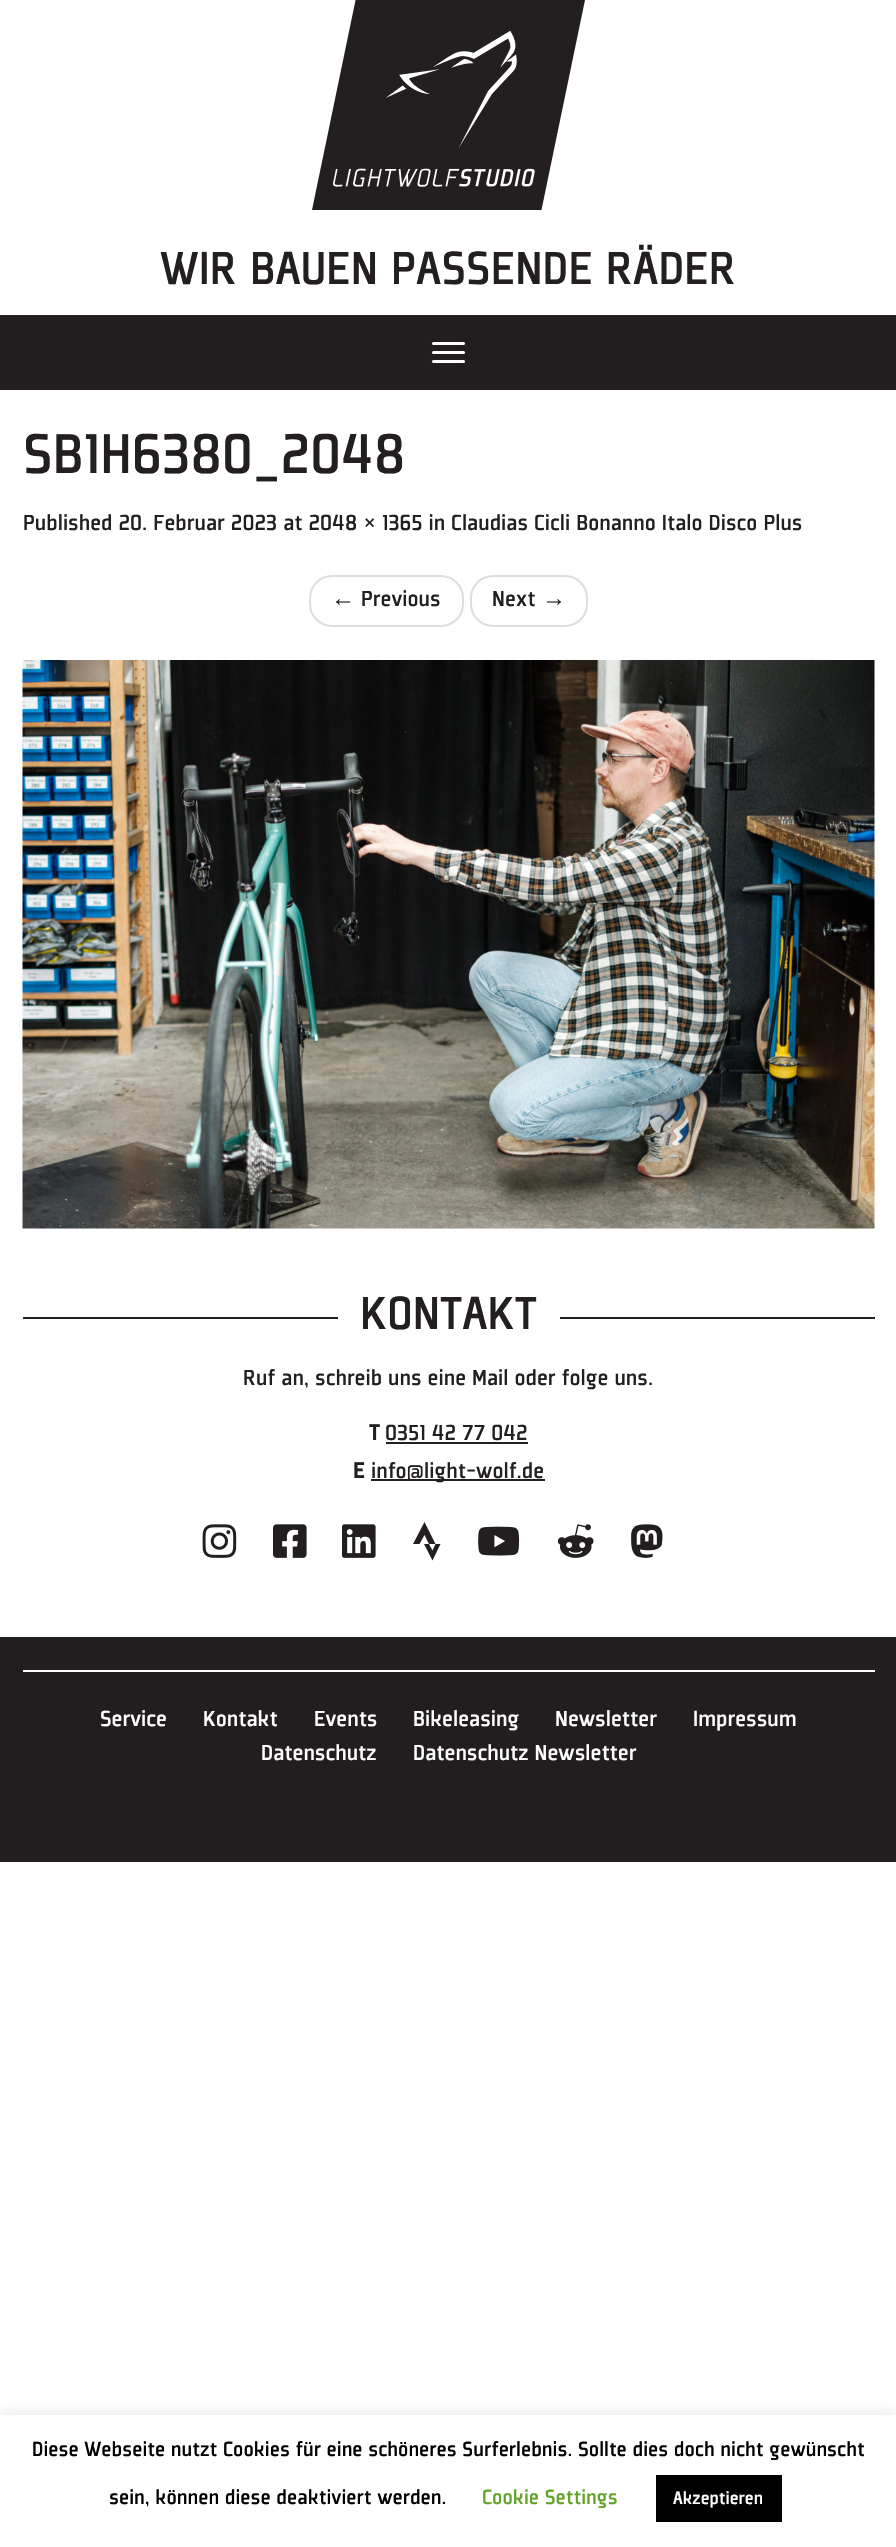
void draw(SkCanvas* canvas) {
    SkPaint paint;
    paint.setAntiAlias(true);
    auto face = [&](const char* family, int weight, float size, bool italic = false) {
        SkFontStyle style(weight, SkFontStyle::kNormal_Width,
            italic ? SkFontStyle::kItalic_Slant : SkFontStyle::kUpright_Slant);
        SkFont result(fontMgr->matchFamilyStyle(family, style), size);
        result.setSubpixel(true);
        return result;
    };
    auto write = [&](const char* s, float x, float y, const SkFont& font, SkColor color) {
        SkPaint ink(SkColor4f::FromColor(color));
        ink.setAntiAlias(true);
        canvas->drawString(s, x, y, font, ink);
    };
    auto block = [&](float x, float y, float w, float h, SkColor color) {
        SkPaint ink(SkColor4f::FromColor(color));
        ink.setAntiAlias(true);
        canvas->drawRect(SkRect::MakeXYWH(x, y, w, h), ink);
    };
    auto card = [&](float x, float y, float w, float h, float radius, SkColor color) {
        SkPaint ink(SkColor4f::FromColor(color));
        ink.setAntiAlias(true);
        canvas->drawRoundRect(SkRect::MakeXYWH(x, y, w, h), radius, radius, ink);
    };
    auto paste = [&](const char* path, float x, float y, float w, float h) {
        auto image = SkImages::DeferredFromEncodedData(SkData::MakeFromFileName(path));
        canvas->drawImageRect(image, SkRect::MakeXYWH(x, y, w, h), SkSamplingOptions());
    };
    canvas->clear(SK_ColorWHITE);
    paste("pic1.png", 312, 0, 273, 210);
    auto kFont1 = face("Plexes", 500, 51);
    write("WIR BAUEN PASSENDE RÄDER", 160, 284, kFont1, SkColorSetRGB(35, 31, 32));
    block(0, 315, 896, 75, SkColorSetRGB(34, 30, 31));
    card(432, 342, 33, 3, 1.5f, SK_ColorWHITE);
    card(432, 351, 33, 3, 1.5f, SK_ColorWHITE);
    card(432, 360, 33, 3, 1.5f, SK_ColorWHITE);
    auto kFont2 = face("Plexes", 500, 61.5f);
    write("SB1H6380_2048", 23, 473, kFont2, SkColorSetRGB(35, 31, 32));
    auto kFont3 = face("Plexes", 500, 24);
    write("Published 20. Februar 2023 at 2048 × 1365 in Claudias Cicli Bonanno Italo Disco Plus", 23, 530, kFont3, SkColorSetRGB(35, 31, 32));
    paint.setStyle(SkPaint::kStroke_Style);
    paint.setStrokeWidth(2);
    paint.setColor(SkColorSetRGB(221, 221, 221));
    canvas->drawRoundRect(SkRect::MakeXYWH(310, 576, 153, 50), 22, 22, paint);
    auto kFont4 = face("Liberation Sans", 400, 24);
    write("←", 331, 606, kFont4, SkColorSetRGB(35, 31, 32));
    write("Previous", 361, 606, kFont3, SkColorSetRGB(35, 31, 32));
    canvas->drawRoundRect(SkRect::MakeXYWH(471, 576, 116, 50), 22, 22, paint);
    write("Next", 492, 606, kFont3, SkColorSetRGB(35, 31, 32));
    write("→", 542, 606, kFont4, SkColorSetRGB(35, 31, 32));
    paste("pic2.png", 22, 660, 853, 569);
    block(23, 1317, 852, 2, SkColorSetRGB(34, 30, 31));
    block(338, 1317, 222, 2, SK_ColorWHITE);
    write("KONTAKT", 360, 1329, kFont1, SkColorSetRGB(35, 31, 32));
    write("Ruf an, schreib uns eine Mail oder folge uns.", 243, 1385, kFont3, SkColorSetRGB(35, 31, 32));
    auto kFont5 = face("Plexes", 700, 24);
    write("T", 369, 1440, kFont5, SkColorSetRGB(35, 31, 32));
    write("0351 42 77 042", 385, 1440, kFont3, SkColorSetRGB(35, 31, 32));
    block(386, 1442, 142, 2, SkColorSetRGB(35, 31, 32));
    write("E", 353, 1478, kFont5, SkColorSetRGB(35, 31, 32));
    block(371, 1479, 174, 2, SkColorSetRGB(35, 31, 32));
    write("info@light-wolf.de", 371, 1478, kFont3, SkColorSetRGB(35, 31, 32));
    paste("pic3.png", 202, 1524, 35, 34);
    paste("pic4.png", 273, 1524, 34, 34);
    paste("pic5.png", 342, 1524, 34, 34);
    paint.setStyle(SkPaint::kFill_Style);
    paint.setColor(SkColorSetRGB(35, 31, 32));
    canvas->drawPath(SkPathBuilder().moveTo(424.5f, 1522).lineTo(435.5f, 1544).lineTo(429, 1544).lineTo(424.5f, 1535).lineTo(419.5f, 1544).lineTo(413, 1544).close().moveTo(435.5f, 1544).lineTo(440.5f, 1544).lineTo(432.5f, 1560.5f).lineTo(424, 1544).lineTo(429, 1544).lineTo(432.5f, 1550.5f).close().detach(), paint);
    paste("pic6.png", 478, 1526, 42, 30);
    paste("pic7.png", 557, 1524, 37, 34);
    paste("pic8.png", 631, 1524, 32, 34);
    block(0, 1637, 896, 225, SkColorSetRGB(34, 30, 31));
    block(23, 1670, 852, 2, SK_ColorWHITE);
    write("Service", 100, 1726, kFont3, SK_ColorWHITE);
    write("Kontakt", 203, 1726, kFont3, SK_ColorWHITE);
    write("Events", 314, 1726, kFont3, SK_ColorWHITE);
    write("Bikeleasing", 413, 1726, kFont3, SK_ColorWHITE);
    write("Newsletter", 555, 1726, kFont3, SK_ColorWHITE);
    write("Impressum", 693, 1726, kFont3, SK_ColorWHITE);
    write("Datenschutz", 261, 1760, kFont3, SK_ColorWHITE);
    write("Datenschutz Newsletter", 413, 1760, kFont3, SK_ColorWHITE);
    paint.setColor(SkColorSetARGB(77, 172, 171, 171));
    paint.setMaskFilter(SkMaskFilter::MakeBlur(kNormal_SkBlurStyle, 7.5f));
    canvas->drawRect(SkRect::MakeXYWH(0, 2414, 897, 132), paint);
    paint.setMaskFilter(nullptr);
    block(0, 2415, 896, 132, SK_ColorWHITE);
    auto kFont6 = face("Plexes", 500, 22.5f);
    write("Diese Webseite nutzt Cookies für eine schöneres Surferlebnis. Sollte dies doch nicht gewünscht", 32, 2456, kFont6, SK_ColorBLACK);
    write("sein, können diese deaktiviert werden.", 109, 2504, kFont6, SK_ColorBLACK);
    write("Cookie Settings", 482, 2504, kFont6, SkColorSetRGB(98, 163, 41));
    block(656, 2475, 126, 47, SK_ColorBLACK);
    auto kFont7 = face("Plexes", 500, 19.5f);
    write("Akzeptieren", 673, 2504, kFont7, SK_ColorWHITE);
}
